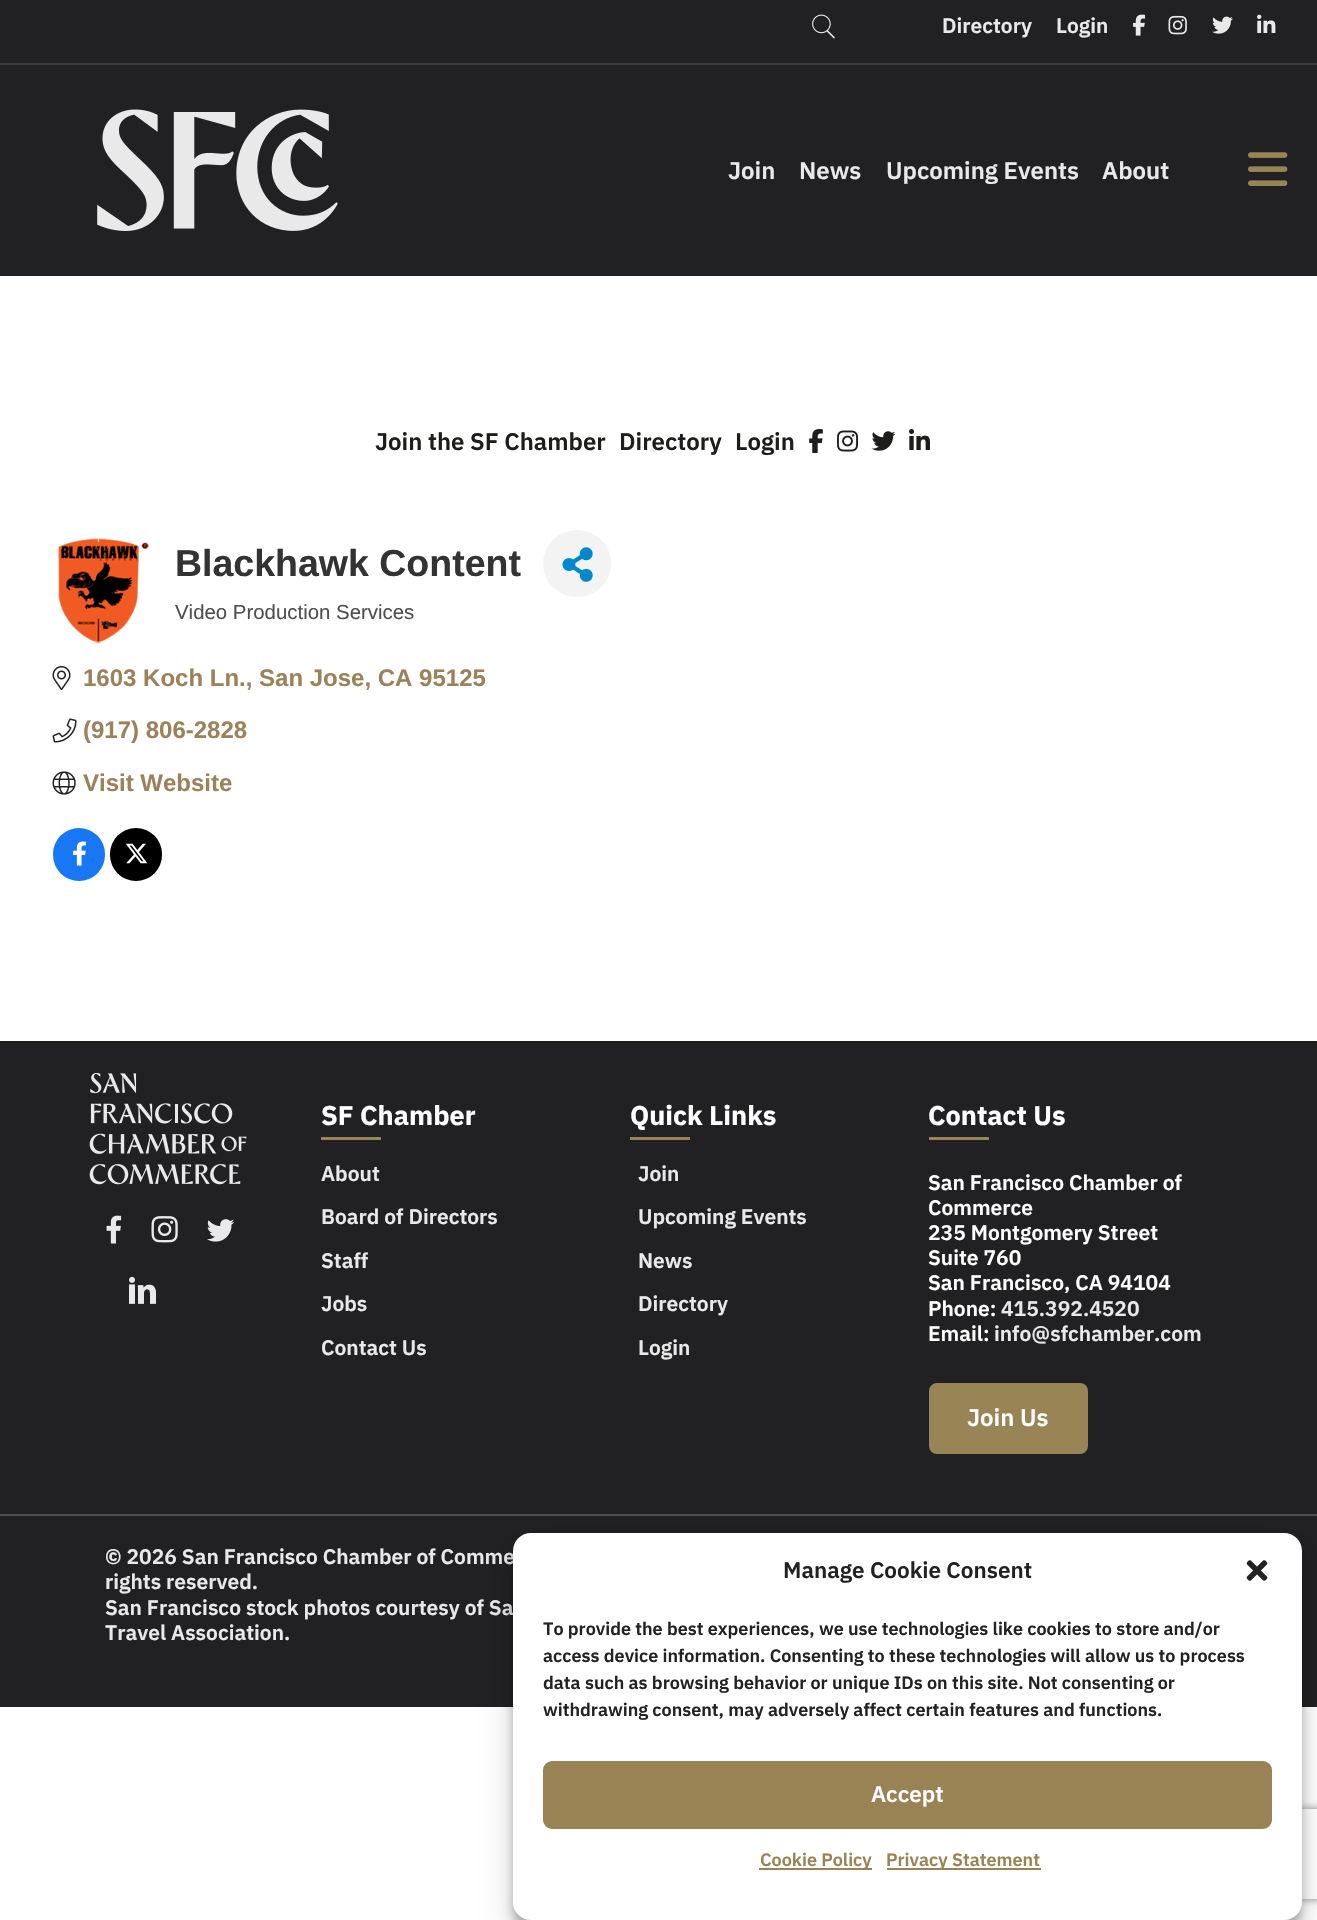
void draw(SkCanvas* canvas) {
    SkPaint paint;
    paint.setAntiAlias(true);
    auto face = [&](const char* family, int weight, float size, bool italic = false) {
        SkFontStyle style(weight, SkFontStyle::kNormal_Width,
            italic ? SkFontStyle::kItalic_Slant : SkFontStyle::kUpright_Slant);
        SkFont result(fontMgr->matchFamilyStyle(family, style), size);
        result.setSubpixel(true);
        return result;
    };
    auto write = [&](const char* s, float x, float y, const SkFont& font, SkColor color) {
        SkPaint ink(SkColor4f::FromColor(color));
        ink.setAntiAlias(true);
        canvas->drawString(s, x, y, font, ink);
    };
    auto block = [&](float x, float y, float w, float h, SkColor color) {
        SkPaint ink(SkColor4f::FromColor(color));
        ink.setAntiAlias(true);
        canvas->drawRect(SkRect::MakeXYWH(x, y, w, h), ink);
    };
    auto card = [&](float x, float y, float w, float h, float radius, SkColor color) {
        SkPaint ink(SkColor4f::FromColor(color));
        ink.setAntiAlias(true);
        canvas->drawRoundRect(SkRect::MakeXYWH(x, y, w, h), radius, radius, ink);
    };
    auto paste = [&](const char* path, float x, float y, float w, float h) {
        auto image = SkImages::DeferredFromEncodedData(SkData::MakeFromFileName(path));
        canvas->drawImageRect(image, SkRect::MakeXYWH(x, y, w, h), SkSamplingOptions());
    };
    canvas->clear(SK_ColorWHITE);
    block(0, 0, 1317, 63, SkColorSetRGB(33, 33, 35));
    block(0, 63, 1317, 2, SkColorSetRGB(59, 59, 61));
    paste("pic1.png", 812, 14, 23, 25);
    auto kFont1 = face("IBM Plex Sans", 600, 21);
    write("Directory", 942, 33, kFont1, SkColorSetRGB(233, 233, 233));
    write("Login", 1056, 33, kFont1, SkColorSetRGB(233, 233, 233));
    paste("pic2.png", 1133, 14, 13, 22);
    paste("pic3.png", 1168, 15, 19, 20);
    paste("pic4.png", 1212, 16, 21, 18);
    paste("pic5.png", 1257, 14, 19, 19);
    block(0, 65, 1317, 211, SkColorSetRGB(33, 33, 35));
    paste("pic6.png", 97, 109, 241, 122);
    auto kFont2 = face("IBM Plex Sans", 600, 24);
    write("Join", 728, 179, kFont2, SkColorSetRGB(233, 233, 233));
    write("News", 799, 179, kFont2, SkColorSetRGB(233, 233, 233));
    write("Upcoming Events", 886, 179, kFont2, SkColorSetRGB(233, 233, 233));
    write("About", 1102, 179, kFont2, SkColorSetRGB(233, 233, 233));
    paste("pic7.png", 1248, 152, 40, 34);
    write("Join the SF Chamber", 375, 450, kFont2, SkColorSetRGB(29, 29, 27));
    write("Directory", 619, 450, kFont2, SkColorSetRGB(29, 29, 27));
    write("Login", 735, 450, kFont2, SkColorSetRGB(29, 29, 27));
    paste("pic8.png", 809, 429, 14, 24);
    paste("pic9.png", 837, 430, 21, 22);
    paste("pic10.png", 871, 431, 25, 20);
    paste("pic11.png", 909, 429, 21, 21);
    block(0, 1041, 1317, 2, SkColorSetRGB(29, 29, 27));
    paste("pic12.png", 57, 538, 92, 106);
    auto kFont3 = face("Liberation Sans", 700, 37.5f);
    write("Blackhawk Content", 175, 576, kFont3, SkColorSetRGB(51, 51, 51));
    card(543, 530, 68, 67, 33.5f, SkColorSetRGB(243, 243, 243));
    paste("pic13.png", 562, 547, 31, 35);
    auto kFont4 = face("Liberation Sans", 400, 20.4f);
    write("Video Production Services", 175, 619, kFont4, SkColorSetRGB(79, 79, 79));
    paste("pic14.png", 52, 666, 19, 24);
    auto kFont5 = face("Liberation Sans", 700, 24);
    write("1603 Koch Ln., San Jose, CA 95125", 83, 686, kFont5, SkColorSetRGB(155, 130, 90));
    paste("pic15.png", 52, 718, 25, 25);
    write("(917) 806-2828", 83, 738, kFont5, SkColorSetRGB(155, 130, 90));
    paste("pic16.png", 52, 771, 24, 24);
    write("Visit Website", 83, 791, kFont5, SkColorSetRGB(155, 130, 90));
    card(53, 828, 52, 53, 26, SkColorSetRGB(24, 119, 242));
    paste("pic17.png", 73, 841, 13, 25);
    card(110, 828, 52, 53, 26, SK_ColorBLACK);
    paste("pic18.png", 125, 843, 23, 21);
    block(0, 1043, 1317, 471, SkColorSetRGB(33, 33, 35));
    paste("pic19.png", 89, 1073, 158, 112);
    paste("pic20.png", 106, 1215, 16, 29);
    paste("pic21.png", 151, 1216, 27, 27);
    paste("pic22.png", 207, 1219, 28, 23);
    paste("pic23.png", 129, 1276, 27, 28);
    auto kFont6 = face("IBM Plex Sans", 700, 27);
    write("SF Chamber", 321, 1125, kFont6, SK_ColorWHITE);
    block(321, 1137, 60, 3, SkColorSetRGB(152, 132, 84));
    write("About", 321, 1181, kFont1, SkColorSetRGB(233, 233, 233));
    write("Board of Directors", 321, 1224, kFont1, SkColorSetRGB(233, 233, 233));
    write("Staff", 321, 1268, kFont1, SkColorSetRGB(233, 233, 233));
    write("Jobs", 321, 1311, kFont1, SkColorSetRGB(233, 233, 233));
    write("Contact Us", 321, 1355, kFont1, SkColorSetRGB(233, 233, 233));
    write("Quick Links", 630, 1125, kFont6, SK_ColorWHITE);
    block(630, 1137, 60, 3, SkColorSetRGB(152, 132, 84));
    write("Join", 638, 1181, kFont1, SkColorSetRGB(233, 233, 233));
    write("Upcoming Events", 638, 1224, kFont1, SkColorSetRGB(233, 233, 233));
    write("News", 638, 1268, kFont1, SkColorSetRGB(233, 233, 233));
    write("Directory", 638, 1311, kFont1, SkColorSetRGB(233, 233, 233));
    write("Login", 638, 1355, kFont1, SkColorSetRGB(233, 233, 233));
    write("Contact Us", 928, 1125, kFont6, SK_ColorWHITE);
    block(929, 1137, 60, 3, SkColorSetRGB(152, 132, 84));
    write("San Francisco Chamber of", 928, 1190, kFont1, SK_ColorWHITE);
    write("Commerce", 928, 1215, kFont1, SK_ColorWHITE);
    write("235 Montgomery Street", 928, 1240, kFont1, SK_ColorWHITE);
    write("Suite 760", 928, 1265, kFont1, SK_ColorWHITE);
    write("San Francisco, CA 94104", 928, 1290, kFont1, SK_ColorWHITE);
    write("Phone:", 928, 1316, kFont1, SK_ColorWHITE);
    write("415.392.4520", 1001, 1316, kFont1, SkColorSetRGB(233, 233, 233));
    write("Email:", 928, 1341, kFont1, SK_ColorWHITE);
    write("info@sfchamber.com", 994, 1341, kFont1, SkColorSetRGB(233, 233, 233));
    paint.setColor(SkColorSetRGB(152, 132, 84));
    canvas->drawRoundRect(SkRect::MakeXYWH(930.5f, 1384.5f, 156, 68), 6.5f, 6.5f, paint);
    paint.setStyle(SkPaint::kStroke_Style);
    paint.setStrokeWidth(3);
    canvas->drawRoundRect(SkRect::MakeXYWH(930.5f, 1384.5f, 156, 68), 6.5f, 6.5f, paint);
    write("Join Us", 967, 1426, kFont2, SK_ColorWHITE);
    block(0, 1516, 1317, 191, SkColorSetRGB(33, 33, 35));
    block(0, 1514, 1317, 2, SkColorSetRGB(77, 77, 79));
    write("© 2026 San Francisco Chamber of Comme", 105, 1564, kFont1, SkColorSetRGB(233, 233, 233));
    write("rights reserved.", 105, 1589, kFont1, SkColorSetRGB(233, 233, 233));
    write("San Francisco stock photos courtesy of Sa", 105, 1615, kFont1, SkColorSetRGB(233, 233, 233));
    write("Travel Association.", 105, 1640, kFont1, SkColorSetRGB(233, 233, 233));
    paint.setStyle(SkPaint::kFill_Style);
    paint.setColor(SkColorSetARGB(59, 0, 0, 0));
    paint.setMaskFilter(SkMaskFilter::MakeBlur(kNormal_SkBlurStyle, 4.5f));
    canvas->drawRoundRect(SkRect::MakeXYWH(513, 1542, 789, 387), 18, 18, paint);
    paint.setMaskFilter(nullptr);
    paint.setColor(SkColorSetARGB(48, 0, 0, 0));
    paint.setMaskFilter(SkMaskFilter::MakeBlur(kNormal_SkBlurStyle, 15));
    canvas->drawRoundRect(SkRect::MakeXYWH(513, 1548, 789, 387), 18, 18, paint);
    paint.setMaskFilter(nullptr);
    canvas->save();
    canvas->clipPath(SkPathBuilder(SkPathFillType::kEvenOdd).moveTo(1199, 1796).lineTo(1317, 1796).lineTo(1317, 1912).lineTo(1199, 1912).close().moveTo(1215, 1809).lineTo(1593, 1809).cubicTo(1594.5f, 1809, 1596, 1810.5f, 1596, 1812).lineTo(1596, 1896).cubicTo(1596, 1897.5f, 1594.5f, 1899, 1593, 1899).lineTo(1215, 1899).cubicTo(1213.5f, 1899, 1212, 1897.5f, 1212, 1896).lineTo(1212, 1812).cubicTo(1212, 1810.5f, 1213.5f, 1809, 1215, 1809).close().detach(), true);
    paint.setColor(SkColorSetRGB(128, 128, 128));
    paint.setMaskFilter(SkMaskFilter::MakeBlur(kNormal_SkBlurStyle, 4));
    canvas->drawRoundRect(SkRect::MakeXYWH(1212, 1809, 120, 90), 3, 3, paint);
    paint.setMaskFilter(nullptr);
    canvas->restore();
    card(513, 1533, 789, 387, 18, SK_ColorWHITE);
    auto kFont7 = face("IBM Plex Sans", 600, 22.5f);
    write("Manage Cookie Consent", 783, 1578, kFont7, SkColorSetRGB(34, 34, 34));
    paste("pic24.png", 1246, 1560, 22, 21);
    auto kFont8 = face("IBM Plex Sans", 600, 18);
    write("To provide the best experiences, we use technologies like cookies to store and/or", 543, 1635, kFont8, SkColorSetRGB(34, 34, 34));
    write("access device information. Consenting to these technologies will allow us to process", 543, 1662, kFont8, SkColorSetRGB(34, 34, 34));
    write("data such as browsing behavior or unique IDs on this site. Not consenting or", 543, 1689, kFont8, SkColorSetRGB(34, 34, 34));
    write("withdrawing consent, may adversely affect certain features and functions.", 543, 1716, kFont8, SkColorSetRGB(34, 34, 34));
    paint.setColor(SkColorSetRGB(153, 131, 84));
    canvas->drawRoundRect(SkRect::MakeXYWH(544, 1762, 727, 66), 8, 8, paint);
    paint.setStyle(SkPaint::kStroke_Style);
    paint.setStrokeWidth(2);
    canvas->drawRoundRect(SkRect::MakeXYWH(544, 1762, 727, 66), 8, 8, paint);
    write("Accept", 871, 1802, kFont7, SK_ColorWHITE);
    block(759, 1868, 113, 2, SkColorSetRGB(153, 131, 84));
    write("Cookie Policy", 760, 1866, kFont8, SkColorSetRGB(153, 131, 84));
    block(887, 1868, 154, 2, SkColorSetRGB(153, 131, 84));
    write("Privacy Statement", 886, 1866, kFont8, SkColorSetRGB(153, 131, 84));
}
